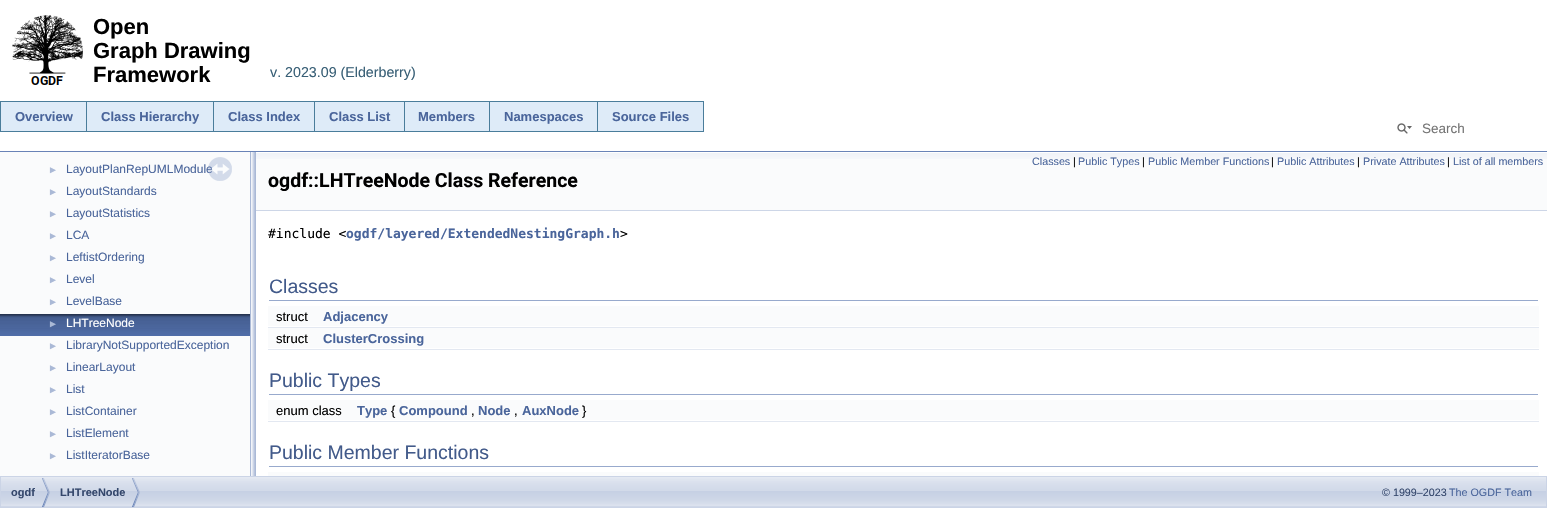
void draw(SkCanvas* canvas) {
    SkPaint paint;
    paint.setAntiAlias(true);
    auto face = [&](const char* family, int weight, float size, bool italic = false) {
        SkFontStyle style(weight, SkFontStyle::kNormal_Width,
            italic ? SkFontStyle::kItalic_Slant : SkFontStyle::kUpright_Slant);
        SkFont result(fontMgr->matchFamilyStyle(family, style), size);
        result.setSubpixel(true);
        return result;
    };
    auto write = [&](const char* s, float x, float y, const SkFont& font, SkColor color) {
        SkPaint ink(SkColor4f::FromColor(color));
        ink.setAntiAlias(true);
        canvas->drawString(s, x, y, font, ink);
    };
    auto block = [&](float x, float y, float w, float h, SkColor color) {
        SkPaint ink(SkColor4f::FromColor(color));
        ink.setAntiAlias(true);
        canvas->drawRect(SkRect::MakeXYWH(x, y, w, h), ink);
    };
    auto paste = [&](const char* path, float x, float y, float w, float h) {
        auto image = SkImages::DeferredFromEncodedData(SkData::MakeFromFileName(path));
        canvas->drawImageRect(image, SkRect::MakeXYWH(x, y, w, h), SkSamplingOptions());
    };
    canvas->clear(SK_ColorWHITE);
    block(0, 151, 1547, 1, SkColorSetRGB(105, 131, 183));
    paste("pic1.png", 12, 15, 71, 70);
    auto kFont1 = face("Liberation Sans", 700, 22);
    write("Open", 93, 34, kFont1, SK_ColorBLACK);
    write("Graph Drawing", 93, 58, kFont1, SK_ColorBLACK);
    write("Framework", 93, 82, kFont1, SK_ColorBLACK);
    auto kFont2 = face("Liberation Sans", 400, 14.25f);
    write("v. 2023.09 (Elderberry)", 270, 77, kFont2, SkColorSetRGB(56, 95, 118));
    block(0, 101, 704, 1, SkColorSetRGB(74, 125, 155));
    block(703, 101, 1, 31, SkColorSetRGB(74, 125, 155));
    block(1, 102, 702, 29, SkColorSetRGB(222, 235, 248));
    block(0, 131, 703, 1, SkColorSetRGB(74, 125, 155));
    block(0, 102, 1, 30, SkColorSetRGB(74, 125, 155));
    auto kFont3 = face("Liberation Sans", 700, 13);
    write("Overview", 15, 121, kFont3, SkColorSetRGB(74, 101, 155));
    block(86, 102, 1, 30, SkColorSetRGB(74, 125, 155));
    write("Class Hierarchy", 101, 121, kFont3, SkColorSetRGB(74, 101, 155));
    block(213, 102, 1, 30, SkColorSetRGB(74, 125, 155));
    write("Class Index", 228, 121, kFont3, SkColorSetRGB(74, 101, 155));
    block(314, 102, 1, 30, SkColorSetRGB(74, 125, 155));
    write("Class List", 329, 121, kFont3, SkColorSetRGB(74, 101, 155));
    block(404, 102, 1, 30, SkColorSetRGB(74, 125, 155));
    write("Members", 418, 121, kFont3, SkColorSetRGB(74, 101, 155));
    block(489, 102, 1, 30, SkColorSetRGB(74, 125, 155));
    write("Namespaces", 504, 121, kFont3, SkColorSetRGB(74, 101, 155));
    block(597, 102, 1, 30, SkColorSetRGB(74, 125, 155));
    write("Source Files", 612, 121, kFont3, SkColorSetRGB(74, 101, 155));
    paste("pic2.png", 1397, 123, 15, 11);
    auto kFont4 = face("Liberation Sans", 400, 13.5f);
    write("Search", 1422, 133, kFont4, SkColorSetRGB(117, 117, 117));
    block(0, 152, 250, 324, SkColorSetRGB(250, 251, 252));
    auto kFont5 = face("Liberation Sans", 400, 12);
    write("LayoutPlanRepUMLModule", 66, 173, kFont5, SkColorSetRGB(74, 101, 155));
    paste("pic3.png", 208, 157, 24, 24);
    auto kFont6 = face("Liberation Sans", 400, 10);
    write("►", 48, 173, kFont6, SkColorSetRGB(170, 185, 214));
    write("►", 48, 195, kFont6, SkColorSetRGB(170, 185, 214));
    write("LayoutStandards", 66, 195, kFont5, SkColorSetRGB(74, 101, 155));
    write("►", 48, 217, kFont6, SkColorSetRGB(170, 185, 214));
    write("LayoutStatistics", 66, 217, kFont5, SkColorSetRGB(74, 101, 155));
    write("►", 48, 239, kFont6, SkColorSetRGB(170, 185, 214));
    write("LCA", 66, 239, kFont5, SkColorSetRGB(74, 101, 155));
    write("►", 48, 261, kFont6, SkColorSetRGB(170, 185, 214));
    write("LeftistOrdering", 66, 261, kFont5, SkColorSetRGB(74, 101, 155));
    write("►", 48, 283, kFont6, SkColorSetRGB(170, 185, 214));
    write("Level", 66, 283, kFont5, SkColorSetRGB(74, 101, 155));
    write("►", 48, 305, kFont6, SkColorSetRGB(170, 185, 214));
    write("LevelBase", 66, 305, kFont5, SkColorSetRGB(74, 101, 155));
    paste("pic4.png", 0, 314, 250, 22);
    write("►", 48, 327, kFont6, SkColorSetRGB(170, 185, 214));
    write("LHTreeNode", 66, 327, kFont5, SK_ColorWHITE);
    write("►", 48, 349, kFont6, SkColorSetRGB(170, 185, 214));
    write("LibraryNotSupportedException", 66, 349, kFont5, SkColorSetRGB(74, 101, 155));
    write("►", 48, 371, kFont6, SkColorSetRGB(170, 185, 214));
    write("LinearLayout", 66, 371, kFont5, SkColorSetRGB(74, 101, 155));
    write("►", 48, 393, kFont6, SkColorSetRGB(170, 185, 214));
    write("List", 66, 393, kFont5, SkColorSetRGB(74, 101, 155));
    write("►", 48, 415, kFont6, SkColorSetRGB(170, 185, 214));
    write("ListContainer", 66, 415, kFont5, SkColorSetRGB(74, 101, 155));
    write("►", 48, 437, kFont6, SkColorSetRGB(170, 185, 214));
    write("ListElement", 66, 437, kFont5, SkColorSetRGB(74, 101, 155));
    write("►", 48, 459, kFont6, SkColorSetRGB(170, 185, 214));
    write("ListIteratorBase", 66, 459, kFont5, SkColorSetRGB(74, 101, 155));
    paste("pic5.png", 250, 152, 6, 324);
    block(256, 159, 1291, 51, SkColorSetRGB(250, 251, 252));
    paste("pic6.png", 256, 152, 1291, 7);
    block(256, 210, 1291, 1, SkColorSetRGB(205, 214, 231));
    auto kFont7 = face("Liberation Sans", 400, 10.75f);
    write("Classes", 1032, 165, kFont7, SkColorSetRGB(74, 101, 155));
    write("|", 1073, 165, kFont7, SK_ColorBLACK);
    write("Public Types", 1078, 165, kFont7, SkColorSetRGB(74, 101, 155));
    write("|", 1142, 165, kFont7, SK_ColorBLACK);
    write("Public Member Functions", 1148, 165, kFont7, SkColorSetRGB(74, 101, 155));
    write("|", 1271, 165, kFont7, SK_ColorBLACK);
    write("Public Attributes", 1277, 165, kFont7, SkColorSetRGB(74, 101, 155));
    write("|", 1357, 165, kFont7, SK_ColorBLACK);
    write("Private Attributes", 1363, 165, kFont7, SkColorSetRGB(74, 101, 155));
    write("|", 1447, 165, kFont7, SK_ColorBLACK);
    write("List of all members", 1453, 165, kFont7, SkColorSetRGB(74, 101, 155));
    auto kFont8 = face("Roboto", 700, 19.5f);
    write("ogdf::LHTreeNode Class Reference", 268, 187, kFont8, SK_ColorBLACK);
    auto kFont9 = face("DejaVu Sans Mono", 400, 13);
    write("#include <", 268, 238, kFont9, SK_ColorBLACK);
    auto kFont10 = face("DejaVu Sans Mono", 700, 13);
    write("ogdf/layered/ExtendedNestingGraph.h", 346, 238, kFont10, SkColorSetRGB(74, 101, 155));
    write(">", 620, 238, kFont9, SK_ColorBLACK);
    block(269, 300, 1269, 1, SkColorSetRGB(152, 170, 205));
    auto kFont11 = face("Liberation Sans", 400, 19.5f);
    write("Classes", 269, 293, kFont11, SkColorSetRGB(66, 90, 138));
    block(268, 306, 1271, 20, SkColorSetRGB(250, 251, 252));
    auto kFont12 = face("Liberation Sans", 400, 13);
    write("struct", 276, 321, kFont12, SK_ColorBLACK);
    write("Adjacency", 323, 321, kFont3, SkColorSetRGB(74, 101, 155));
    block(268, 327, 1271, 1, SkColorSetRGB(227, 232, 241));
    block(268, 328, 1271, 20, SkColorSetRGB(250, 251, 252));
    write("struct", 276, 343, kFont12, SK_ColorBLACK);
    write("ClusterCrossing", 323, 343, kFont3, SkColorSetRGB(74, 101, 155));
    block(268, 349, 1271, 1, SkColorSetRGB(227, 232, 241));
    block(269, 394, 1269, 1, SkColorSetRGB(152, 170, 205));
    write("Public Types", 269, 387, kFont11, SkColorSetRGB(66, 90, 138));
    block(268, 400, 1271, 20, SkColorSetRGB(250, 251, 252));
    write("enum class", 276, 415, kFont12, SK_ColorBLACK);
    write("Type", 357, 415, kFont3, SkColorSetRGB(74, 101, 155));
    write("{", 391, 415, kFont12, SK_ColorBLACK);
    write("Compound", 399, 415, kFont3, SkColorSetRGB(74, 101, 155));
    write(",", 471, 415, kFont12, SK_ColorBLACK);
    write("Node", 478, 415, kFont3, SkColorSetRGB(74, 101, 155));
    write(",", 514, 415, kFont12, SK_ColorBLACK);
    write("AuxNode", 522, 415, kFont3, SkColorSetRGB(74, 101, 155));
    write("}", 582, 415, kFont12, SK_ColorBLACK);
    block(268, 421, 1271, 1, SkColorSetRGB(227, 232, 241));
    block(269, 466, 1269, 1, SkColorSetRGB(152, 170, 205));
    write("Public Member Functions", 269, 459, kFont11, SkColorSetRGB(66, 90, 138));
    block(268, 472, 1271, 4, SkColorSetRGB(250, 251, 252));
    paste("pic7.png", 1, 477, 1545, 30);
    paint.setStyle(SkPaint::kStroke_Style);
    paint.setStrokeWidth(1);
    paint.setColor(SkColorSetRGB(203, 212, 230));
    canvas->drawRect(SkRect::MakeXYWH(0.5f, 476.5f, 1546, 31), paint);
    paste("pic8.png", 42, 478, 8, 29);
    auto kFont13 = face("Liberation Sans", 700, 11);
    write("ogdf", 11, 496, kFont13, SkColorSetRGB(52, 71, 108));
    paste("pic8.png", 132, 478, 8, 29);
    write("LHTreeNode", 60, 496, kFont13, SkColorSetRGB(52, 71, 108));
    write("© 1999–2023", 1382, 496, kFont7, SkColorSetRGB(52, 71, 108));
    write("The OGDF Team", 1449, 496, kFont7, SkColorSetRGB(74, 101, 155));
}
